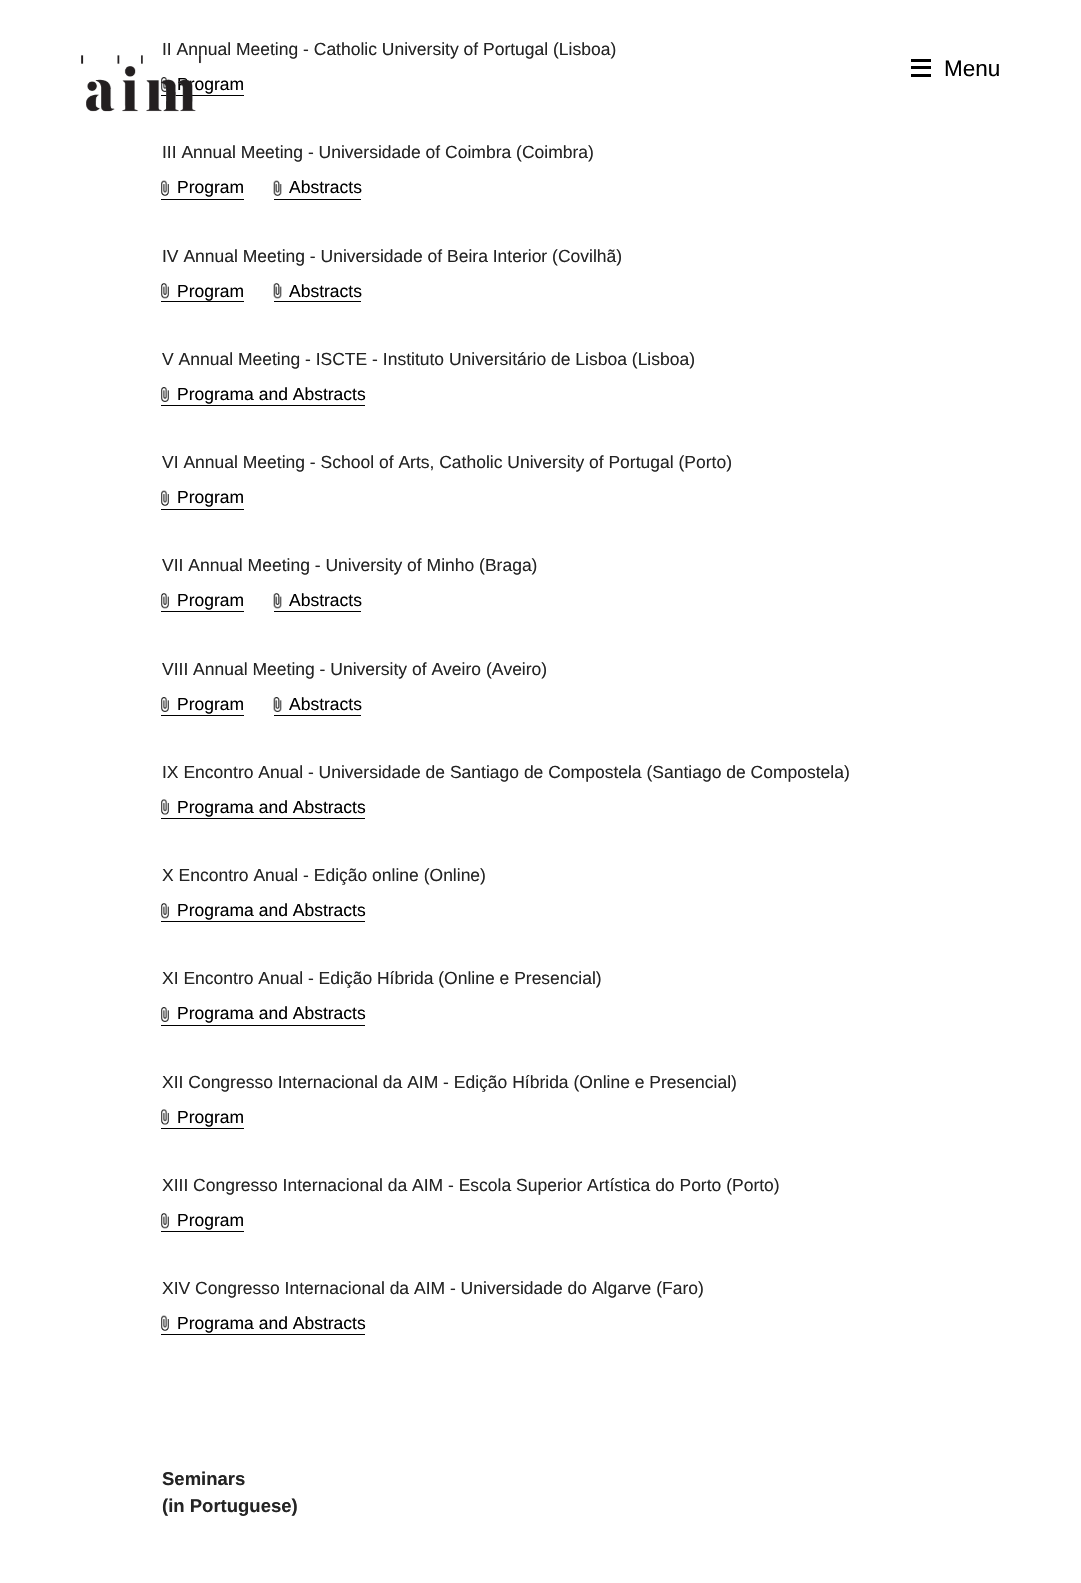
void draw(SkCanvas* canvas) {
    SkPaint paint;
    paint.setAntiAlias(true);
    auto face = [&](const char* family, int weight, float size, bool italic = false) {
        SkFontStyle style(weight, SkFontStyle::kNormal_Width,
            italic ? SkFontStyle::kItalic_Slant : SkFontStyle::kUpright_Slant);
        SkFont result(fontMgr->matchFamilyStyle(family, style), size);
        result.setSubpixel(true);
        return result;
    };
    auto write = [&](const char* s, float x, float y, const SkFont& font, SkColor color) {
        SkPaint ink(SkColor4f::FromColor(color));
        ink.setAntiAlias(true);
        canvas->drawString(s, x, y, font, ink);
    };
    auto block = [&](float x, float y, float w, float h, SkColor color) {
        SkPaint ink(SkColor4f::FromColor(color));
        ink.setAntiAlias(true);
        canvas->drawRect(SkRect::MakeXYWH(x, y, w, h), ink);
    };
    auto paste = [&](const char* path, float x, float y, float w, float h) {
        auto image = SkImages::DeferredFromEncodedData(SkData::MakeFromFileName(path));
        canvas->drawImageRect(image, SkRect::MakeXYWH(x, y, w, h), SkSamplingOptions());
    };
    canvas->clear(SK_ColorWHITE);
    auto kFont1 = face("Liberation Sans", 400, 17.5f);
    write("II Annual Meeting - Catholic University of Portugal (Lisboa)", 162, 55, kFont1, SkColorSetRGB(36, 36, 36));
    paste("pic1.png", 161, 77, 8, 15);
    write("Program", 177, 90, kFont1, SK_ColorBLACK);
    block(161, 95, 83, 1, SK_ColorBLACK);
    write("III Annual Meeting - Universidade of Coimbra (Coimbra)", 162, 158, kFont1, SkColorSetRGB(36, 36, 36));
    paste("pic2.png", 161, 180, 8, 16);
    write("Program", 177, 193, kFont1, SK_ColorBLACK);
    block(161, 199, 83, 1, SK_ColorBLACK);
    paste("pic3.png", 273, 180, 9, 16);
    write("Abstracts", 289, 193, kFont1, SK_ColorBLACK);
    block(274, 199, 87, 1, SK_ColorBLACK);
    write("IV Annual Meeting - Universidade of Beira Interior (Covilhã)", 162, 262, kFont1, SkColorSetRGB(36, 36, 36));
    paste("pic4.png", 161, 283, 8, 16);
    write("Program", 177, 297, kFont1, SK_ColorBLACK);
    block(161, 301, 83, 1, SK_ColorBLACK);
    paste("pic5.png", 273, 283, 9, 16);
    write("Abstracts", 289, 297, kFont1, SK_ColorBLACK);
    block(274, 301, 87, 1, SK_ColorBLACK);
    write("V Annual Meeting - ISCTE - Instituto Universitário de Lisboa (Lisboa)", 162, 365, kFont1, SkColorSetRGB(36, 36, 36));
    paste("pic1.png", 161, 387, 8, 15);
    write("Programa and Abstracts", 177, 400, kFont1, SK_ColorBLACK);
    block(161, 405, 204, 1, SK_ColorBLACK);
    write("VI Annual Meeting - School of Arts, Catholic University of Portugal (Porto)", 162, 468, kFont1, SkColorSetRGB(36, 36, 36));
    paste("pic2.png", 161, 490, 8, 16);
    write("Program", 177, 503, kFont1, SK_ColorBLACK);
    block(161, 509, 83, 1, SK_ColorBLACK);
    write("VII Annual Meeting - University of Minho (Braga)", 162, 571, kFont1, SkColorSetRGB(36, 36, 36));
    paste("pic4.png", 161, 593, 8, 16);
    write("Program", 177, 606, kFont1, SK_ColorBLACK);
    block(161, 611, 83, 1, SK_ColorBLACK);
    paste("pic5.png", 273, 593, 9, 16);
    write("Abstracts", 289, 606, kFont1, SK_ColorBLACK);
    block(274, 611, 87, 1, SK_ColorBLACK);
    write("VIII Annual Meeting - University of Aveiro (Aveiro)", 162, 675, kFont1, SkColorSetRGB(36, 36, 36));
    paste("pic6.png", 161, 697, 8, 15);
    write("Program", 177, 710, kFont1, SK_ColorBLACK);
    block(161, 715, 83, 1, SK_ColorBLACK);
    paste("pic7.png", 273, 697, 9, 15);
    write("Abstracts", 289, 710, kFont1, SK_ColorBLACK);
    block(274, 715, 87, 1, SK_ColorBLACK);
    write("IX Encontro Anual - Universidade de Santiago de Compostela (Santiago de Compostela)", 162, 778, kFont1, SkColorSetRGB(36, 36, 36));
    paste("pic8.png", 161, 799, 8, 16);
    write("Programa and Abstracts", 177, 813, kFont1, SK_ColorBLACK);
    block(161, 818, 204, 1, SK_ColorBLACK);
    write("X Encontro Anual - Edição online (Online)", 162, 881, kFont1, SkColorSetRGB(36, 36, 36));
    paste("pic4.png", 161, 903, 8, 16);
    write("Programa and Abstracts", 177, 916, kFont1, SK_ColorBLACK);
    block(161, 921, 204, 1, SK_ColorBLACK);
    write("XI Encontro Anual - Edição Híbrida (Online e Presencial)", 162, 984, kFont1, SkColorSetRGB(36, 36, 36));
    paste("pic6.png", 161, 1007, 8, 15);
    write("Programa and Abstracts", 177, 1019, kFont1, SK_ColorBLACK);
    block(161, 1025, 204, 1, SK_ColorBLACK);
    write("XII Congresso Internacional da AIM - Edição Híbrida (Online e Presencial)", 162, 1088, kFont1, SkColorSetRGB(36, 36, 36));
    paste("pic8.png", 161, 1109, 8, 16);
    write("Program", 177, 1123, kFont1, SK_ColorBLACK);
    block(161, 1128, 83, 1, SK_ColorBLACK);
    write("XIII Congresso Internacional da AIM - Escola Superior Artística do Porto (Porto)", 162, 1191, kFont1, SkColorSetRGB(36, 36, 36));
    paste("pic4.png", 161, 1213, 8, 16);
    write("Program", 177, 1226, kFont1, SK_ColorBLACK);
    block(161, 1231, 83, 1, SK_ColorBLACK);
    write("XIV Congresso Internacional da AIM - Universidade do Algarve (Faro)", 162, 1294, kFont1, SkColorSetRGB(36, 36, 36));
    paste("pic2.png", 161, 1315, 8, 16);
    write("Programa and Abstracts", 177, 1329, kFont1, SK_ColorBLACK);
    block(161, 1334, 204, 1, SK_ColorBLACK);
    auto kFont2 = face("Liberation Sans", 700, 18.5f);
    write("Seminars", 162, 1485, kFont2, SkColorSetRGB(36, 36, 36));
    write("(in Portuguese)", 162, 1512, kFont2, SkColorSetRGB(36, 36, 36));
    paste("pic9.png", 81, 55, 121, 57);
    block(911, 66, 20, 3, SK_ColorBLACK);
    block(911, 59, 20, 3, SK_ColorBLACK);
    block(911, 74, 20, 3, SK_ColorBLACK);
    auto kFont3 = face("Liberation Sans", 400, 22.5f);
    write("Menu", 944, 76, kFont3, SK_ColorBLACK);
}
